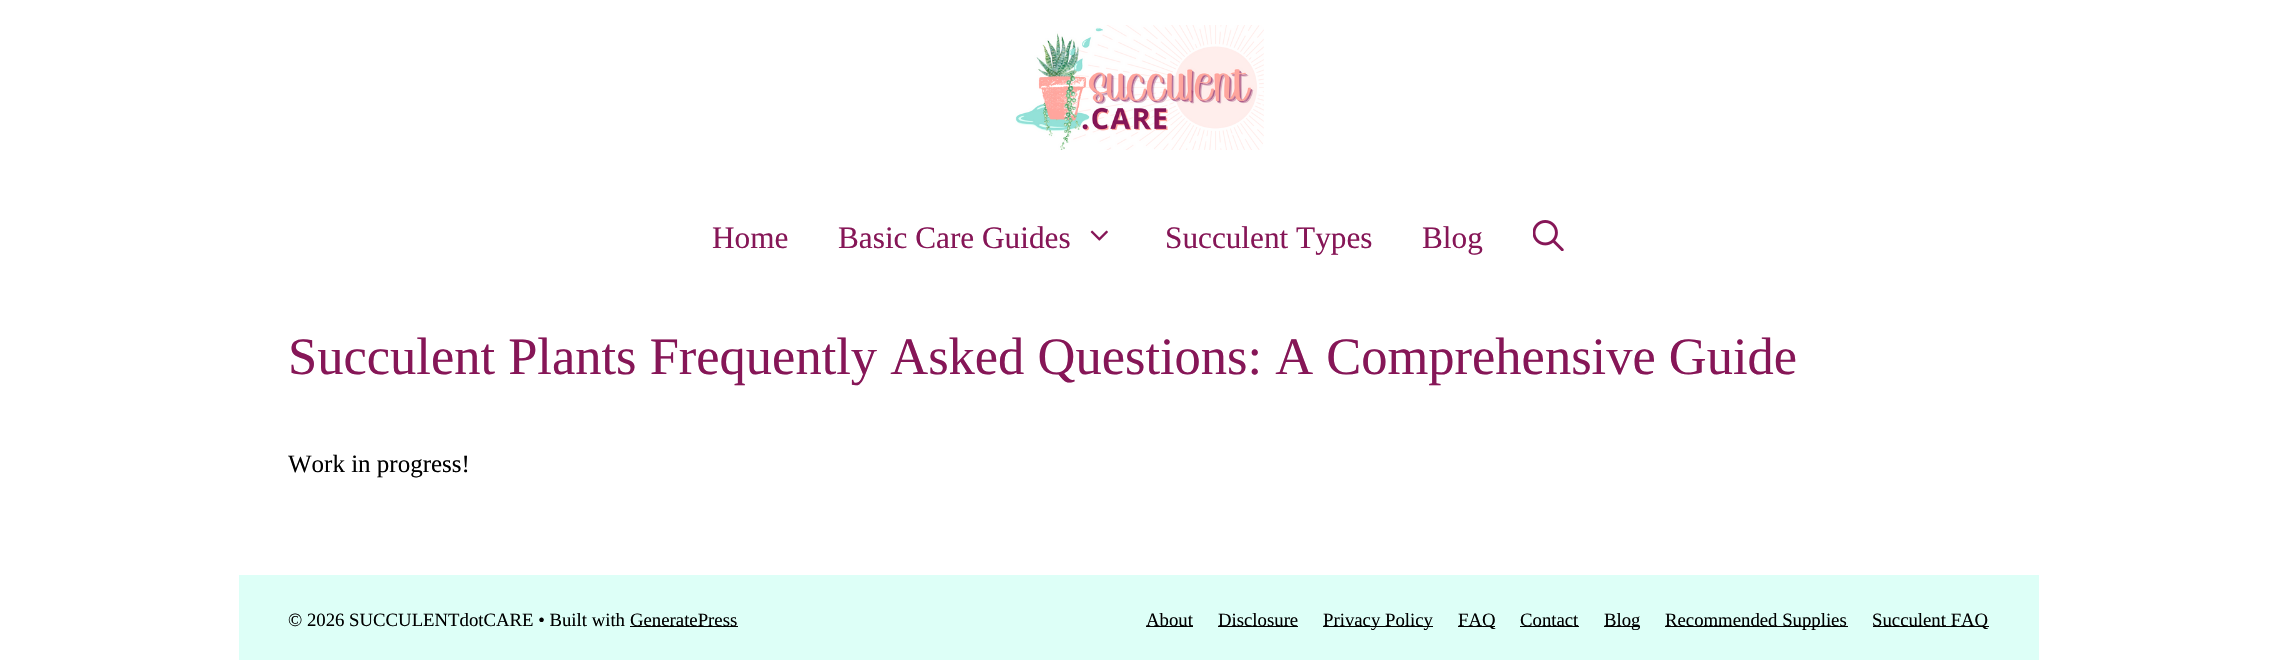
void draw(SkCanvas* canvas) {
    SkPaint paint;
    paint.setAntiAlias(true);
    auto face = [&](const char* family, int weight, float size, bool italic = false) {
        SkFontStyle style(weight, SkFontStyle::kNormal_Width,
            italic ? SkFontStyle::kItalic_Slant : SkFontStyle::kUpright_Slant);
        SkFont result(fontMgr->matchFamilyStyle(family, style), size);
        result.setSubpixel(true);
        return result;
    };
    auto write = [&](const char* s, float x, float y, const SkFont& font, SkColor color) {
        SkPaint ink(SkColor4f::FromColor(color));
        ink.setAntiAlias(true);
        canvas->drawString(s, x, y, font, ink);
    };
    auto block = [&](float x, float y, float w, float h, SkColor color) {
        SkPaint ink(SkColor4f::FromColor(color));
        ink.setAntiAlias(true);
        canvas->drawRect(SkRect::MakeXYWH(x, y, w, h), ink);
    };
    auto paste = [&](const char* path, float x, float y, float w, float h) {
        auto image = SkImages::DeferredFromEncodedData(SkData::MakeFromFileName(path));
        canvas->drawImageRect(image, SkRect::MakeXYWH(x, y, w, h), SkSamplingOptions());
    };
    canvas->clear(SK_ColorWHITE);
    paste("pic1.png", 1015, 25, 249, 125);
    auto kFont1 = face("Liberation Serif", 400, 31.25f);
    write("Home", 712, 248, kFont1, SkColorSetRGB(134, 22, 87));
    write("Basic Care Guides", 838, 248, kFont1, SkColorSetRGB(134, 22, 87));
    paste("pic2.png", 1090, 230, 18, 11);
    write("Succulent Types", 1165, 248, kFont1, SkColorSetRGB(134, 22, 87));
    write("Blog", 1422, 248, kFont1, SkColorSetRGB(134, 22, 87));
    paste("pic3.png", 1533, 220, 31, 31);
    auto kFont2 = face("Liberation Serif", 400, 52.5f);
    write("Succulent Plants Frequently Asked Questions: A Comprehensive Guide", 288, 374, kFont2, SkColorSetRGB(134, 22, 87));
    auto kFont3 = face("Liberation Serif", 400, 25);
    write("Work in progress!", 288, 472, kFont3, SK_ColorBLACK);
    block(239, 575, 1800, 85, SkColorSetRGB(221, 255, 247));
    auto kFont4 = face("Liberation Serif", 400, 18.75f);
    write("© 2026 SUCCULENTdotCARE • Built with", 288, 626, kFont4, SK_ColorBLACK);
    block(630, 626, 108, 1, SK_ColorBLACK);
    write("GeneratePress", 630, 626, kFont4, SK_ColorBLACK);
    block(1146, 626, 47, 1, SK_ColorBLACK);
    write("About", 1146, 626, kFont4, SK_ColorBLACK);
    block(1218, 626, 80, 1, SK_ColorBLACK);
    write("Disclosure", 1218, 626, kFont4, SK_ColorBLACK);
    block(1323, 626, 110, 1, SK_ColorBLACK);
    write("Privacy Policy", 1323, 626, kFont4, SK_ColorBLACK);
    block(1458, 626, 37, 1, SK_ColorBLACK);
    write("FAQ", 1458, 626, kFont4, SK_ColorBLACK);
    block(1520, 626, 59, 1, SK_ColorBLACK);
    write("Contact", 1520, 626, kFont4, SK_ColorBLACK);
    block(1604, 626, 36, 1, SK_ColorBLACK);
    write("Blog", 1604, 626, kFont4, SK_ColorBLACK);
    block(1665, 626, 183, 1, SK_ColorBLACK);
    write("Recommended Supplies", 1665, 626, kFont4, SK_ColorBLACK);
    block(1873, 626, 116, 1, SK_ColorBLACK);
    write("Succulent FAQ", 1872, 626, kFont4, SK_ColorBLACK);
}
